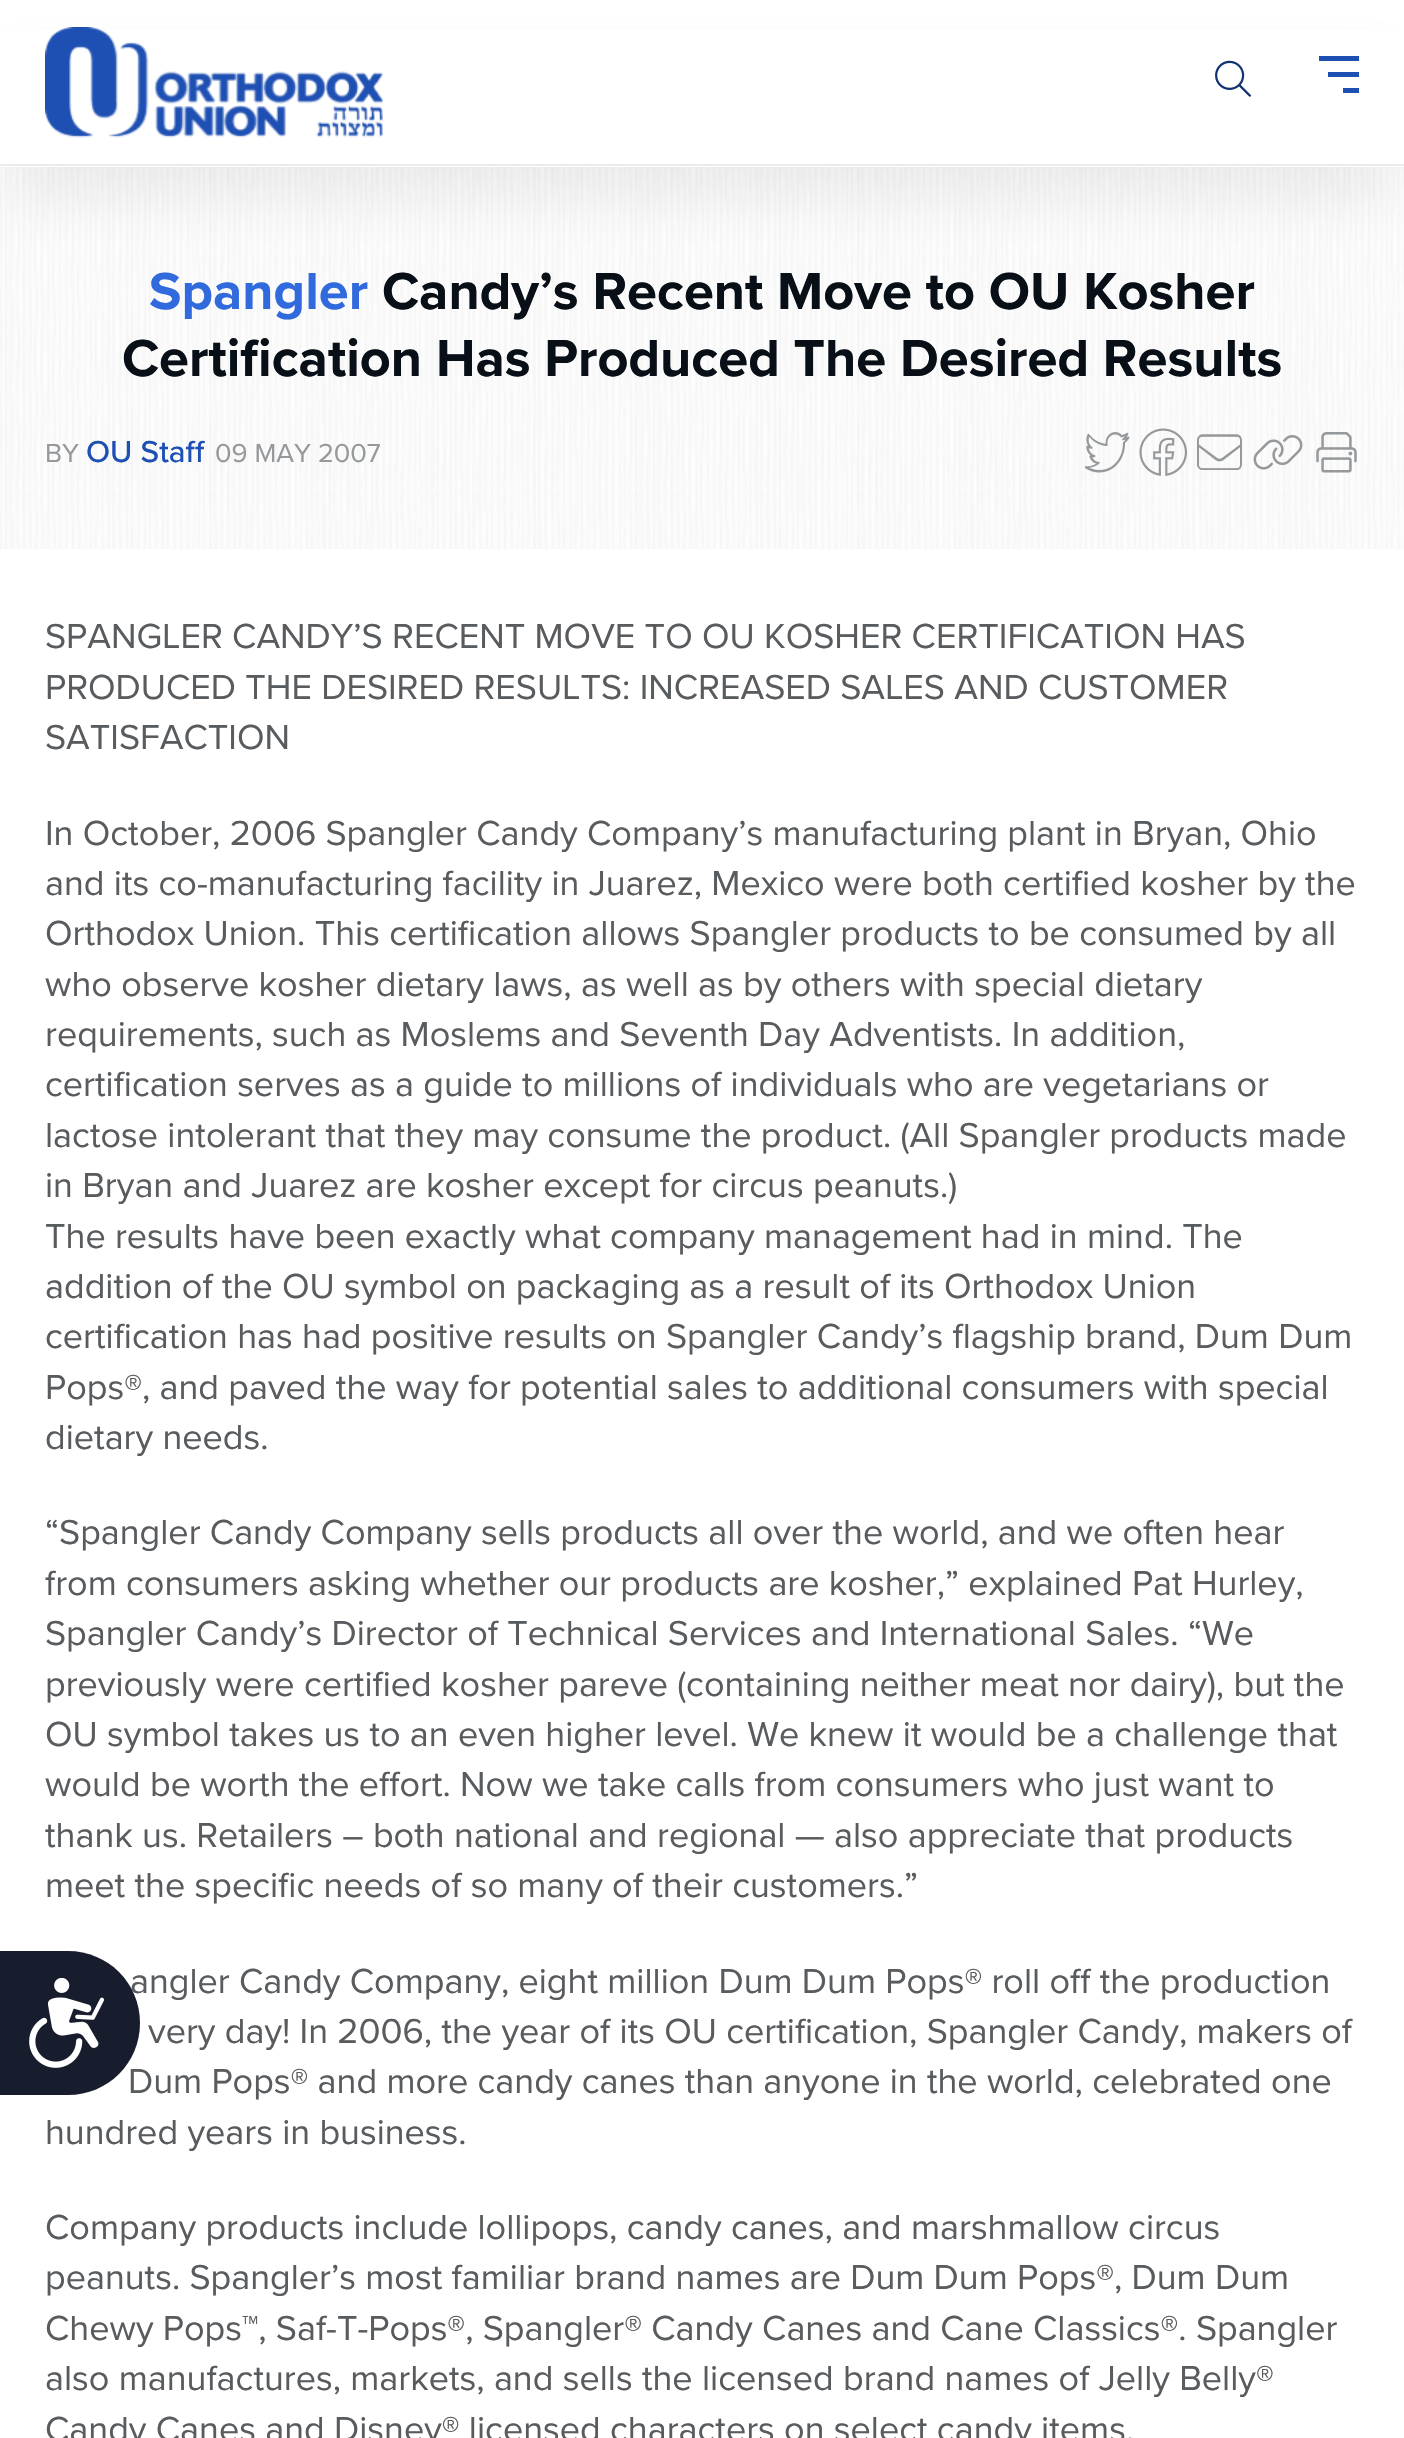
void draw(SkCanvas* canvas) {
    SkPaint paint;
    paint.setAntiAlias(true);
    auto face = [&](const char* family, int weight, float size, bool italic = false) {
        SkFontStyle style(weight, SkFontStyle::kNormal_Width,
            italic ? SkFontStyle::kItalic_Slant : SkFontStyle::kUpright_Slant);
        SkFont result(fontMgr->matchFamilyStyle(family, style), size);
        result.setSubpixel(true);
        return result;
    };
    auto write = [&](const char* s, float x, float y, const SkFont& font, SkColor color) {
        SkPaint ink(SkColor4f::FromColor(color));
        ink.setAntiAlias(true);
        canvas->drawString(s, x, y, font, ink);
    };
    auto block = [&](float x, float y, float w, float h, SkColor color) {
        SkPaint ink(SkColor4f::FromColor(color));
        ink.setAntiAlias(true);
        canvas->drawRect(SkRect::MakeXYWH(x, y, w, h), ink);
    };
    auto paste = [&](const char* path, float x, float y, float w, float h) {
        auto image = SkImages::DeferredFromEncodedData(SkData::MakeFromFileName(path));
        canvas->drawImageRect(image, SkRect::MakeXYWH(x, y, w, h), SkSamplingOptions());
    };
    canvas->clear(SK_ColorWHITE);
    paste("pic3.png", 0, 167, 1404, 382);
    paint.setColor(SkColorSetARGB(15, 16, 24, 40));
    paint.setMaskFilter(SkMaskFilter::MakeBlur(kNormal_SkBlurStyle, 27));
    canvas->drawRect(SkRect::MakeXYWH(9, 54, 1386, 149), paint);
    paint.setMaskFilter(nullptr);
    block(0, 30, 1404, 137, SK_ColorWHITE);
    block(0, 164, 1404, 2, SkColorSetRGB(235, 235, 235));
    paste("pic1.png", 45, 27, 338, 111);
    paste("pic2.png", 1215, 60, 36, 37);
    block(1319, 56, 40, 5, SkColorSetRGB(30, 80, 180));
    block(1328, 72, 31, 5, SkColorSetRGB(30, 80, 180));
    block(1343, 88, 16, 5, SkColorSetRGB(30, 80, 180));
    auto kFont1 = face("Proxima Nova", 700, 54);
    write("Spangler", 149, 309, kFont1, SkColorSetRGB(49, 106, 221));
    write("Candy’s Recent Move to OU Kosher", 382, 309, kFont1, SkColorSetRGB(8, 15, 22));
    write("Certification Has Produced The Desired Results", 122, 376, kFont1, SkColorSetRGB(8, 15, 22));
    auto kFont2 = face("Proxima Nova", 400, 27);
    write("BY", 45, 462, kFont2, SkColorSetRGB(150, 153, 156));
    auto kFont3 = face("Proxima Nova", 500, 31.5f);
    write("OU Staff", 86, 462, kFont3, SkColorSetRGB(30, 80, 180));
    write("09 MAY 2007", 215, 462, kFont2, SkColorSetRGB(150, 153, 156));
    paste("pic4.png", 1085, 432, 45, 41);
    paste("pic5.png", 1139, 428, 48, 48);
    paste("pic6.png", 1197, 434, 45, 36);
    paste("pic7.png", 1253, 435, 50, 35);
    paste("pic8.png", 1316, 432, 41, 41);
    auto kFont4 = face("Proxima Nova", 400, 36);
    write("SPANGLER CANDY’S RECENT MOVE TO OU KOSHER CERTIFICATION HAS", 45, 648, kFont4, SkColorSetRGB(89, 92, 95));
    write("PRODUCED THE DESIRED RESULTS: INCREASED SALES AND CUSTOMER", 45, 699, kFont4, SkColorSetRGB(89, 92, 95));
    write("SATISFACTION", 45, 749, kFont4, SkColorSetRGB(89, 92, 95));
    write("In October, 2006 Spangler Candy Company’s manufacturing plant in Bryan, Ohio", 45, 845, kFont4, SkColorSetRGB(89, 92, 95));
    write("and its co-manufacturing facility in Juarez, Mexico were both certified kosher by the", 45, 895, kFont4, SkColorSetRGB(89, 92, 95));
    write("Orthodox Union. This certification allows Spangler products to be consumed by all", 45, 945, kFont4, SkColorSetRGB(89, 92, 95));
    write("who observe kosher dietary laws, as well as by others with special dietary", 45, 996, kFont4, SkColorSetRGB(89, 92, 95));
    write("requirements, such as Moslems and Seventh Day Adventists. In addition,", 45, 1046, kFont4, SkColorSetRGB(89, 92, 95));
    write("certification serves as a guide to millions of individuals who are vegetarians or", 45, 1096, kFont4, SkColorSetRGB(89, 92, 95));
    write("lactose intolerant that they may consume the product. (All Spangler products made", 45, 1147, kFont4, SkColorSetRGB(89, 92, 95));
    write("in Bryan and Juarez are kosher except for circus peanuts.)", 45, 1197, kFont4, SkColorSetRGB(89, 92, 95));
    write("The results have been exactly what company management had in mind. The", 45, 1248, kFont4, SkColorSetRGB(89, 92, 95));
    write("addition of the OU symbol on packaging as a result of its Orthodox Union", 45, 1298, kFont4, SkColorSetRGB(89, 92, 95));
    write("certification has had positive results on Spangler Candy’s flagship brand, Dum Dum", 45, 1348, kFont4, SkColorSetRGB(89, 92, 95));
    write("Pops®, and paved the way for potential sales to additional consumers with special", 45, 1399, kFont4, SkColorSetRGB(89, 92, 95));
    write("dietary needs.", 45, 1449, kFont4, SkColorSetRGB(89, 92, 95));
    write("“Spangler Candy Company sells products all over the world, and we often hear", 45, 1544, kFont4, SkColorSetRGB(89, 92, 95));
    write("from consumers asking whether our products are kosher,” explained Pat Hurley,", 45, 1595, kFont4, SkColorSetRGB(89, 92, 95));
    write("Spangler Candy’s Director of Technical Services and International Sales. “We", 45, 1645, kFont4, SkColorSetRGB(89, 92, 95));
    write("previously were certified kosher pareve (containing neither meat nor dairy), but the", 45, 1696, kFont4, SkColorSetRGB(89, 92, 95));
    write("OU symbol takes us to an even higher level. We knew it would be a challenge that", 45, 1746, kFont4, SkColorSetRGB(89, 92, 95));
    write("would be worth the effort. Now we take calls from consumers who just want to", 45, 1796, kFont4, SkColorSetRGB(89, 92, 95));
    write("thank us. Retailers – both national and regional — also appreciate that products", 45, 1847, kFont4, SkColorSetRGB(89, 92, 95));
    write("meet the specific needs of so many of their customers.”", 45, 1897, kFont4, SkColorSetRGB(89, 92, 95));
    write("angler Candy Company, eight million Dum Dum Pops® roll off the production", 130, 1993, kFont4, SkColorSetRGB(89, 92, 95));
    write("very day! In 2006, the year of its OU certification, Spangler Candy, makers of", 148, 2043, kFont4, SkColorSetRGB(89, 92, 95));
    write("Dum Pops® and more candy canes than anyone in the world, celebrated one", 128, 2093, kFont4, SkColorSetRGB(89, 92, 95));
    write("hundred years in business.", 45, 2144, kFont4, SkColorSetRGB(89, 92, 95));
    write("Company products include lollipops, candy canes, and marshmallow circus", 45, 2239, kFont4, SkColorSetRGB(89, 92, 95));
    write("peanuts. Spangler’s most familiar brand names are Dum Dum Pops®, Dum Dum", 45, 2289, kFont4, SkColorSetRGB(89, 92, 95));
    write("Chewy Pops™, Saf-T-Pops®, Spangler® Candy Canes and Cane Classics®. Spangler", 45, 2340, kFont4, SkColorSetRGB(89, 92, 95));
    write("also manufactures, markets, and sells the licensed brand names of Jelly Belly®", 45, 2390, kFont4, SkColorSetRGB(89, 92, 95));
    write("Candy Canes and Disney® licensed characters on select candy items.", 45, 2441, kFont4, SkColorSetRGB(89, 92, 95));
    paint.setColor(SkColorSetRGB(23, 29, 45));
    canvas->drawPath(SkPathBuilder().moveTo(0, 1951).lineTo(68, 1951).cubicTo(108, 1951, 140, 1983, 140, 2023).cubicTo(140, 2063, 108, 2095, 68, 2095).lineTo(0, 2095).close().detach(), paint);
    paste("pic9.png", 29, 1978, 75, 90);
}
